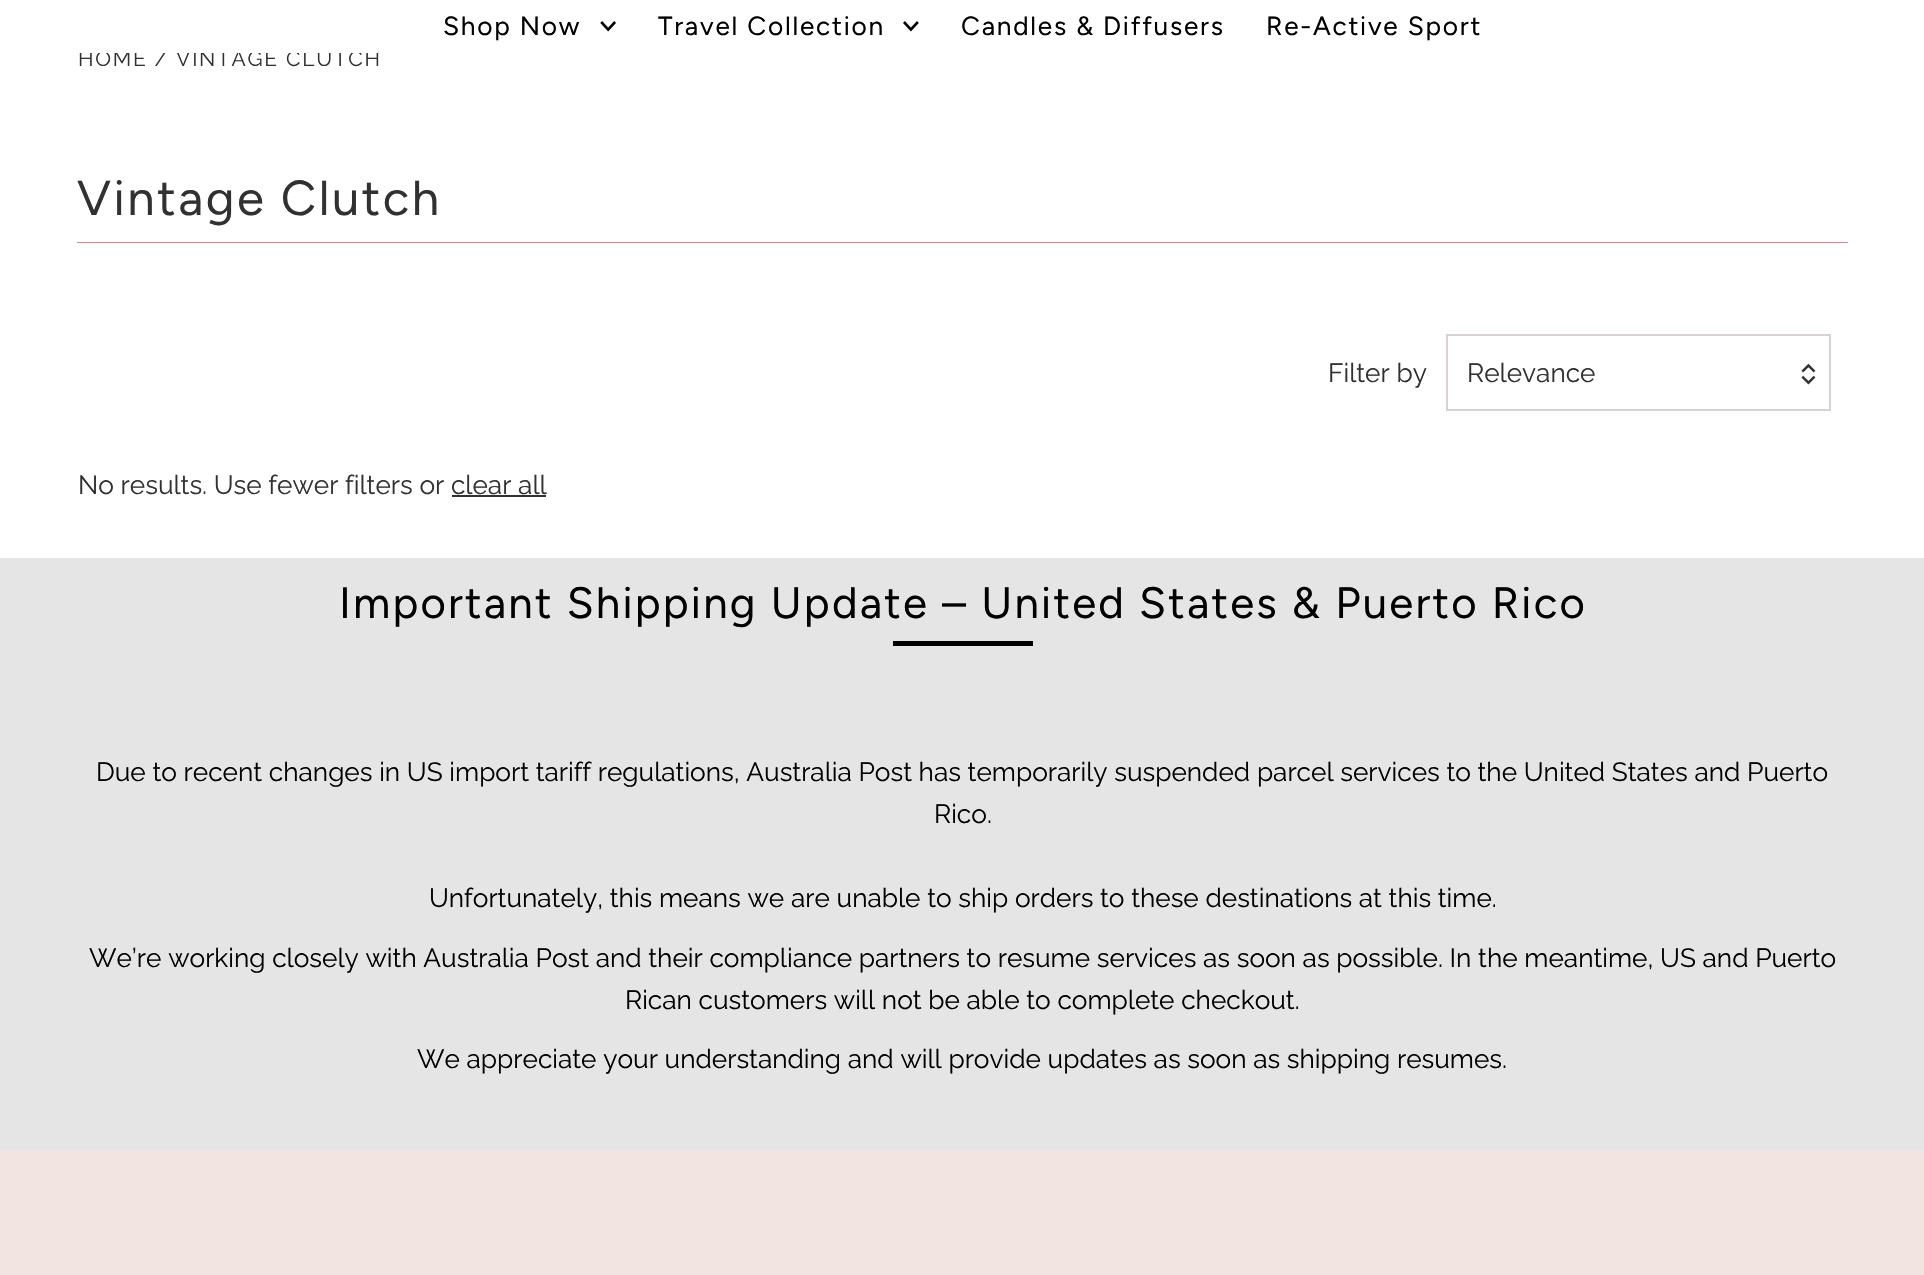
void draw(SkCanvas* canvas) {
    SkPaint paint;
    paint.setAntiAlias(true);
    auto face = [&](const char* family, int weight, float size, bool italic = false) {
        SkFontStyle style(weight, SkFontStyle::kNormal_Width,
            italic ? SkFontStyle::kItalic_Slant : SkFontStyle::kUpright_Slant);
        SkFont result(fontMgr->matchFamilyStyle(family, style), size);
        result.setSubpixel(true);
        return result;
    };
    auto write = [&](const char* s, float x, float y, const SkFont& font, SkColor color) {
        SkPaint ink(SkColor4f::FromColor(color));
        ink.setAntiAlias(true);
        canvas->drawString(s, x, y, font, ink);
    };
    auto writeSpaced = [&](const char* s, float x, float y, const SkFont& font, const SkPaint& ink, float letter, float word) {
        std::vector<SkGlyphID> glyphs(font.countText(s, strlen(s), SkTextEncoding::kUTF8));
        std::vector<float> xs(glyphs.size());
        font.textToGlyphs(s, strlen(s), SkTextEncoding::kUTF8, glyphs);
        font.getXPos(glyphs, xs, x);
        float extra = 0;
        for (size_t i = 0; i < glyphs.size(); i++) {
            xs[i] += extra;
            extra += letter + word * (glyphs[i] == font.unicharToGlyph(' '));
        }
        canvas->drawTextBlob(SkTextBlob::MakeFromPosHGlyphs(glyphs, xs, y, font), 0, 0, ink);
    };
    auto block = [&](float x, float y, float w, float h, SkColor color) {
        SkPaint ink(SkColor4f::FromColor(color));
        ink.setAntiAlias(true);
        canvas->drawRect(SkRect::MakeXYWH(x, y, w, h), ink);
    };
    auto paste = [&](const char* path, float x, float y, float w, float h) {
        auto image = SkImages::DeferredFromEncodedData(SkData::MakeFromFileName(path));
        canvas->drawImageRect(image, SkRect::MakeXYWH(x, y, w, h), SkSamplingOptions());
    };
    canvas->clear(SK_ColorWHITE);
    auto kFont1 = face("Raleway", 400, 21);
    paint.setColor(SkColorSetRGB(49, 49, 49));
    writeSpaced("HOME / VINTAGE CLUTCH", 78, 66, kFont1, paint, 1.75f, 0);
    block(79, 51, 299, 2, SK_ColorWHITE);
    auto kFont2 = face("Figtree", 400, 26.25f);
    paint.setColor(SK_ColorBLACK);
    writeSpaced("Shop Now", 443, 35, kFont2, paint, 1.75f, 0);
    paste("pic1.png", 600, 21, 16, 11);
    writeSpaced("Travel Collection", 658, 35, kFont2, paint, 1.75f, 0);
    paste("pic2.png", 903, 21, 16, 11);
    writeSpaced("Candles & Diffusers", 961, 35, kFont2, paint, 1.75f, 0);
    writeSpaced("Re-Active Sport", 1266, 35, kFont2, paint, 1.75f, 0);
    block(77, 242, 1771, 1, SkColorSetRGB(193, 149, 134));
    auto kFont3 = face("Figtree", 400, 49);
    paint.setColor(SkColorSetRGB(49, 49, 49));
    writeSpaced("Vintage Clutch", 77, 215, kFont3, paint, 2.5f, 0);
    auto kFont4 = face("Raleway", 400, 26.25f);
    write("Filter by", 1328, 382, kFont4, SkColorSetRGB(49, 49, 49));
    paint.setStyle(SkPaint::kStroke_Style);
    paint.setStrokeWidth(2);
    paint.setColor(SkColorSetRGB(215, 211, 210));
    canvas->drawRect(SkRect::MakeXYWH(1447, 335, 383, 75), paint);
    write("Relevance", 1467, 382, kFont4, SkColorSetRGB(49, 49, 49));
    paste("pic3.png", 1801, 363, 15, 22);
    write("No results. Use fewer filters or clear all", 78, 494, kFont4, SkColorSetRGB(49, 49, 49));
    block(452, 495, 94, 2, SkColorSetRGB(49, 49, 49));
    block(0, 558, 1924, 592, SkColorSetRGB(229, 229, 229));
    auto kFont5 = face("Figtree", 400, 43.75f);
    paint.setStyle(SkPaint::kFill_Style);
    paint.setColor(SK_ColorBLACK);
    writeSpaced("Important Shipping Update – United States & Puerto Rico", 339, 618, kFont5, paint, 2.2f, 0);
    block(893, 641, 140, 5, SK_ColorBLACK);
    write("Due to recent changes in US import tariff regulations, Australia Post has temporarily suspended parcel services to the United States and Puerto", 96, 781, kFont4, SK_ColorBLACK);
    write("Rico.", 934, 823, kFont4, SK_ColorBLACK);
    write("Unfortunately, this means we are unable to ship orders to these destinations at this time.", 429, 907, kFont4, SK_ColorBLACK);
    write("We’re working closely with Australia Post and their compliance partners to resume services as soon as possible. In the meantime, US and Puerto", 89, 967, kFont4, SK_ColorBLACK);
    write("Rican customers will not be able to complete checkout.", 625, 1009, kFont4, SK_ColorBLACK);
    write("We appreciate your understanding and will provide updates as soon as shipping resumes.", 417, 1068, kFont4, SK_ColorBLACK);
    block(0, 1150, 1924, 125, SkColorSetRGB(242, 228, 224));
}
